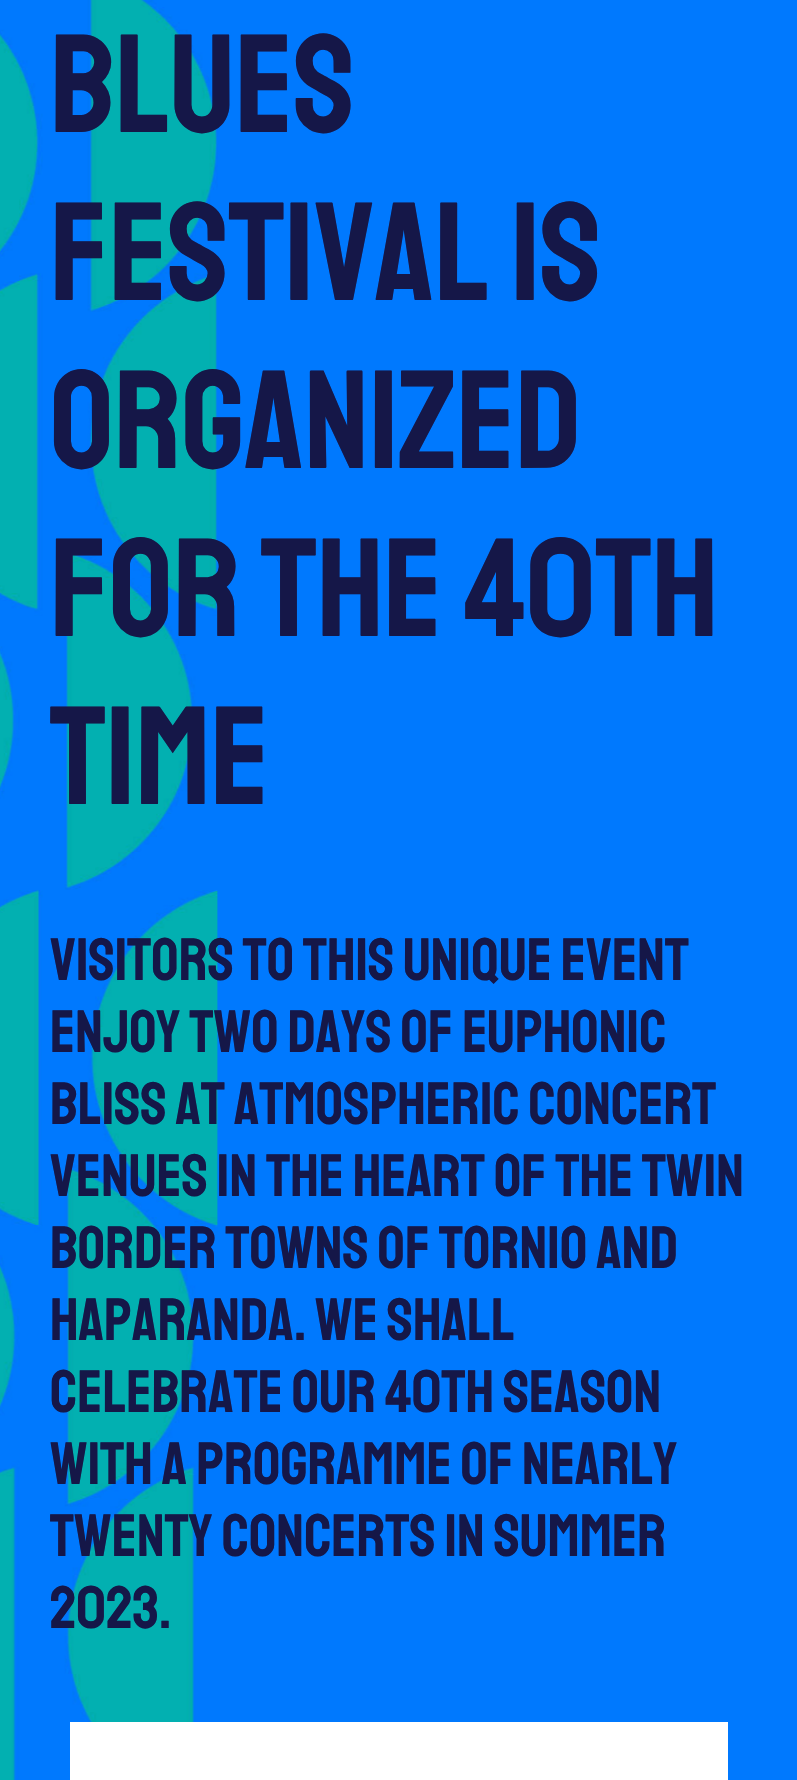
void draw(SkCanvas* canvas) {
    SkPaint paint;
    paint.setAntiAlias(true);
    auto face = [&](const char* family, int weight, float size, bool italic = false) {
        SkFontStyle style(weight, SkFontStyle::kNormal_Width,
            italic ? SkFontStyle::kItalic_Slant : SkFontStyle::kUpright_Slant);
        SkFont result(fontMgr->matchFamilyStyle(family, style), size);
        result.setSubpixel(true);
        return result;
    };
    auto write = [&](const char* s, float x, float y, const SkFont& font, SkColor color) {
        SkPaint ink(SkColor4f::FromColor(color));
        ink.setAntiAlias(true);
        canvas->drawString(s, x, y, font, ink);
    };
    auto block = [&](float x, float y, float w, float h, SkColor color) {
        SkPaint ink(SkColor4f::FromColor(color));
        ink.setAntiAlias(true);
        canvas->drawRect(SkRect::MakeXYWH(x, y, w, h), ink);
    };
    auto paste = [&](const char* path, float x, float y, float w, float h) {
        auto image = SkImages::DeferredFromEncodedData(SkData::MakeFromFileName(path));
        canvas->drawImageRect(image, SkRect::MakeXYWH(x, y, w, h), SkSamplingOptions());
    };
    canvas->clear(SK_ColorWHITE);
    paste("pic1.png", 0, 0, 797, 1780);
    auto kFont1 = face("Staatliches", 400, 140);
    write("Blues", 50, 132, kFont1, SkColorSetRGB(21, 23, 72));
    write("festival is", 50, 300, kFont1, SkColorSetRGB(21, 23, 72));
    write("organized", 50, 468, kFont1, SkColorSetRGB(21, 23, 72));
    write("for the 40th", 50, 636, kFont1, SkColorSetRGB(21, 23, 72));
    write("time", 50, 804, kFont1, SkColorSetRGB(21, 23, 72));
    auto kFont2 = face("Staatliches", 400, 60);
    write("Visitors to this unique event", 50, 980, kFont2, SkColorSetRGB(21, 23, 72));
    write("enjoy two days of euphonic", 50, 1052, kFont2, SkColorSetRGB(21, 23, 72));
    write("bliss at atmospheric concert", 50, 1124, kFont2, SkColorSetRGB(21, 23, 72));
    write("venues in the heart of the twin", 50, 1196, kFont2, SkColorSetRGB(21, 23, 72));
    write("border towns of Tornio and", 50, 1268, kFont2, SkColorSetRGB(21, 23, 72));
    write("Haparanda. We shall", 50, 1340, kFont2, SkColorSetRGB(21, 23, 72));
    write("celebrate our 40th season", 50, 1412, kFont2, SkColorSetRGB(21, 23, 72));
    write("with a programme of nearly", 50, 1484, kFont2, SkColorSetRGB(21, 23, 72));
    write("twenty concerts in summer", 50, 1556, kFont2, SkColorSetRGB(21, 23, 72));
    write("2023.", 50, 1628, kFont2, SkColorSetRGB(21, 23, 72));
    block(70, 1722, 658, 58, SK_ColorWHITE);
}
